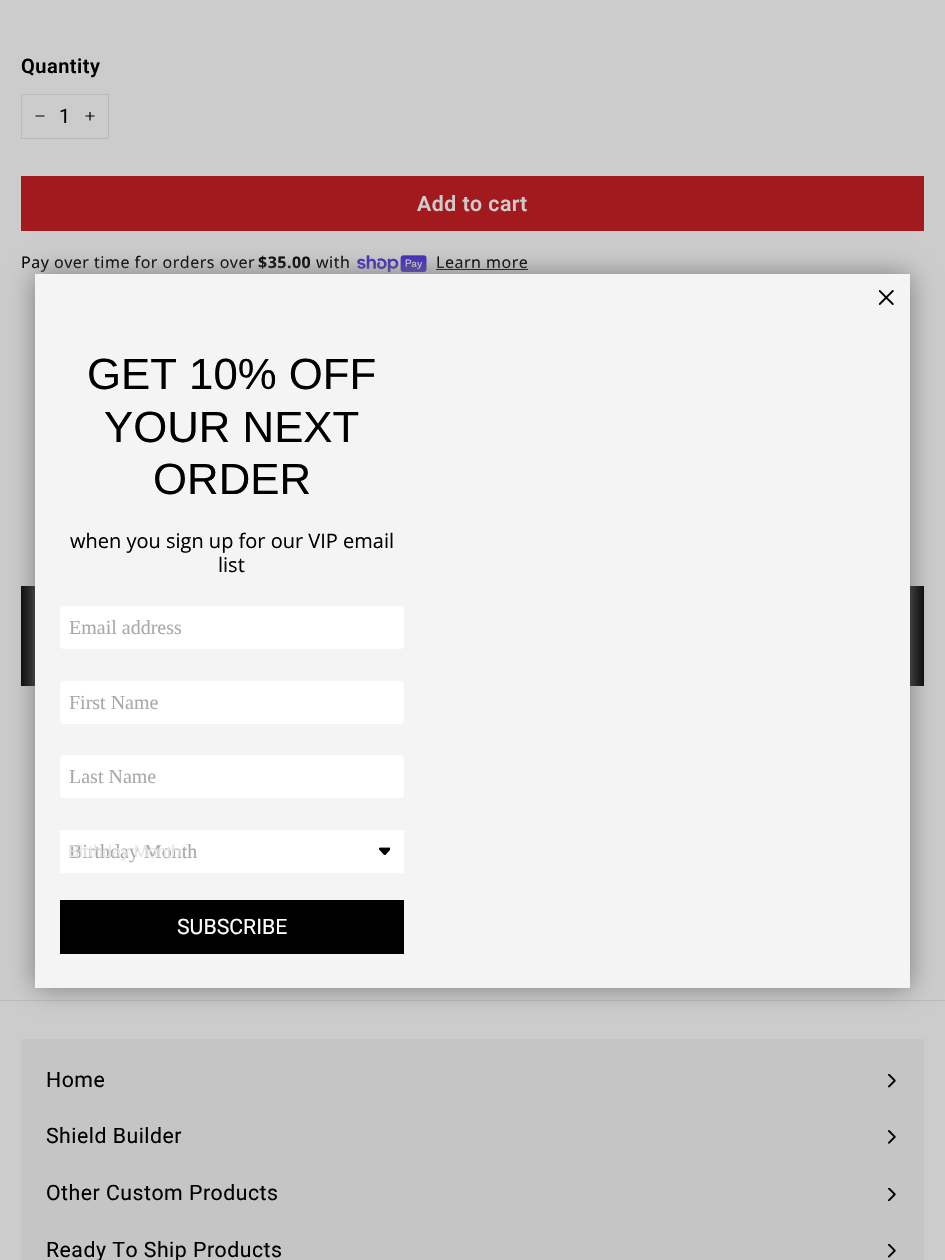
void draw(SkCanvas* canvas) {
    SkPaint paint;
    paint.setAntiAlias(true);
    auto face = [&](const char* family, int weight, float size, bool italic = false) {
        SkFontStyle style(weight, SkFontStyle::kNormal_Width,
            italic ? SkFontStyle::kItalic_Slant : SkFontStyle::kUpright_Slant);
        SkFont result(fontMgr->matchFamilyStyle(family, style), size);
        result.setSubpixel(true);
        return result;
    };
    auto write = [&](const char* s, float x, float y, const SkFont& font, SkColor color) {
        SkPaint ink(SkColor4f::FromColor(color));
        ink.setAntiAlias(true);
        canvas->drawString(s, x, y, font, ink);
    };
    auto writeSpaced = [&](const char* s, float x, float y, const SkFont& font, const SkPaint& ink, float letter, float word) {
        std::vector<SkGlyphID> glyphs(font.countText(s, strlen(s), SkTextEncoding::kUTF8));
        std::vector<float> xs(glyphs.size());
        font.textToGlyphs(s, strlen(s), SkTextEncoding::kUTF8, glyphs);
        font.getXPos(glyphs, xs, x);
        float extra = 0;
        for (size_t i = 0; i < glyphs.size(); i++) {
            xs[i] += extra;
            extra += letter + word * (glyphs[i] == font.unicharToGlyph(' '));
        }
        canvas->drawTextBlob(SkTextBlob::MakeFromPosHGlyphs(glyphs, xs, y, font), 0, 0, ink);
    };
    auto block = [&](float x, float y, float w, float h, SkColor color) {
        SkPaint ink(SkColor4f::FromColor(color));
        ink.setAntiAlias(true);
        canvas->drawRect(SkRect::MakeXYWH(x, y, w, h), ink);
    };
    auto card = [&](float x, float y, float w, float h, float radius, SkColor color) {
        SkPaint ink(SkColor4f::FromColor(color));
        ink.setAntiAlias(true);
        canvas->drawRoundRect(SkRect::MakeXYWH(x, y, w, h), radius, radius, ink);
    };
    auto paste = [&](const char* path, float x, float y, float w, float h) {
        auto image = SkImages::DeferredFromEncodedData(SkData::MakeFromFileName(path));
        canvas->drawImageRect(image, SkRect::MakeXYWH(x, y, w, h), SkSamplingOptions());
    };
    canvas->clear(SkColorSetRGB(204, 204, 204));
    auto kFont1 = face("Roboto", 600, 20);
    paint.setColor(SK_ColorBLACK);
    writeSpaced("Quantity", 21, 73, kFont1, paint, 0.5f, 0);
    paint.setStyle(SkPaint::kStroke_Style);
    paint.setStrokeWidth(1);
    paint.setColor(SkColorSetRGB(186, 186, 180));
    canvas->drawRect(SkRect::MakeXYWH(21.5f, 94.5f, 87, 44), paint);
    auto kFont2 = face("Roboto", 400, 20);
    write("1", 59, 123, kFont2, SK_ColorBLACK);
    paint.setStrokeWidth(1.2f);
    paint.setColor(SK_ColorBLACK);
    canvas->drawPath(SkPathBuilder().moveTo(44.5f, 116).lineTo(35.5f, 116).moveTo(90, 112).lineTo(90, 120.5f).moveTo(94.5f, 116).lineTo(85.5f, 116).detach(), paint);
    block(21, 176, 903, 55, SkColorSetRGB(162, 26, 30));
    auto kFont3 = face("Roboto", 600, 21.25f);
    paint.setStyle(SkPaint::kFill_Style);
    paint.setColor(SkColorSetRGB(204, 204, 204));
    writeSpaced("Add to cart", 417, 211, kFont3, paint, 0.5f, 0);
    auto kFont4 = face("Noto Sans", 400, 16);
    paint.setColor(SK_ColorBLACK);
    writeSpaced("Pay over time for orders over", 21, 268, kFont4, paint, 0.5f, 0);
    auto kFont5 = face("Noto Sans", 700, 16);
    writeSpaced("$35.00", 258, 268, kFont5, paint, 0.5f, 0);
    writeSpaced("with", 316, 268, kFont4, paint, 0.5f, 0);
    paste("pic1.png", 357, 255, 70, 18);
    writeSpaced("Learn more", 436, 268, kFont4, paint, 0.5f, 0);
    block(436, 269, 92, 1, SK_ColorBLACK);
    block(21, 586, 903, 100, SK_ColorBLACK);
    block(0, 1000, 945, 1, SkColorSetRGB(186, 186, 180));
    paste("pic2.png", 888, 1074, 8, 14);
    paste("pic3.png", 888, 1130, 8, 14);
    paste("pic4.png", 888, 1188, 8, 13);
    paste("pic2.png", 888, 1244, 8, 14);
    block(21, 1039, 903, 221, SkColorSetARGB(8, 0, 0, 0));
    auto kFont6 = face("Roboto", 400, 21.25f);
    writeSpaced("Home", 46, 1087, kFont6, paint, 0.5f, 0);
    writeSpaced("Shield Builder", 46, 1143, kFont6, paint, 0.5f, 0);
    writeSpaced("Other Custom Products", 46, 1200, kFont6, paint, 0.5f, 0);
    writeSpaced("Ready To Ship Products", 46, 1257, kFont6, paint, 0.5f, 0);
    paint.setColor(SkColorSetRGB(125, 125, 125));
    paint.setMaskFilter(SkMaskFilter::MakeBlur(kNormal_SkBlurStyle, 12.5f));
    canvas->drawRect(SkRect::MakeXYWH(35, 274, 875, 714), paint);
    paint.setMaskFilter(nullptr);
    block(35, 274, 875, 714, SkColorSetRGB(245, 244, 244));
    paste("pic5.png", 879, 290, 15, 15);
    auto kFont7 = face("Liberation Sans", 400, 43.75f);
    write("GET 10% OFF", 87, 389, kFont7, SK_ColorBLACK);
    write("YOUR NEXT", 104, 442, kFont7, SK_ColorBLACK);
    write("ORDER", 153, 494, kFont7, SK_ColorBLACK);
    auto kFont8 = face("Open Sans", 400, 20);
    write("when you sign up for our VIP email", 70, 548, kFont8, SK_ColorBLACK);
    write("list", 218, 572, kFont8, SK_ColorBLACK);
    card(60, 606, 344, 43, 4, SK_ColorWHITE);
    auto kFont9 = face("Liberation Serif", 400, 20);
    write("Email address", 69, 634, kFont9, SkColorSetRGB(169, 169, 169));
    card(60, 681, 344, 43, 4, SK_ColorWHITE);
    write("First Name", 69, 709, kFont9, SkColorSetRGB(169, 169, 169));
    card(60, 755, 344, 43, 4, SK_ColorWHITE);
    write("Last Name", 69, 783, kFont9, SkColorSetRGB(169, 169, 169));
    block(60, 830, 344, 43, SK_ColorWHITE);
    write("Birthday Month", 69, 858, kFont9, SkColorSetRGB(169, 169, 169));
    auto kFont10 = face("Liberation Sans", 400, 16.75f);
    write("Birthday Month", 68, 857, kFont10, SkColorSetRGB(230, 230, 230));
    paste("pic6.png", 379, 847, 11, 8);
    block(60, 900, 344, 54, SK_ColorBLACK);
    write("SUBSCRIBE", 177, 934, kFont6, SK_ColorWHITE);
}
